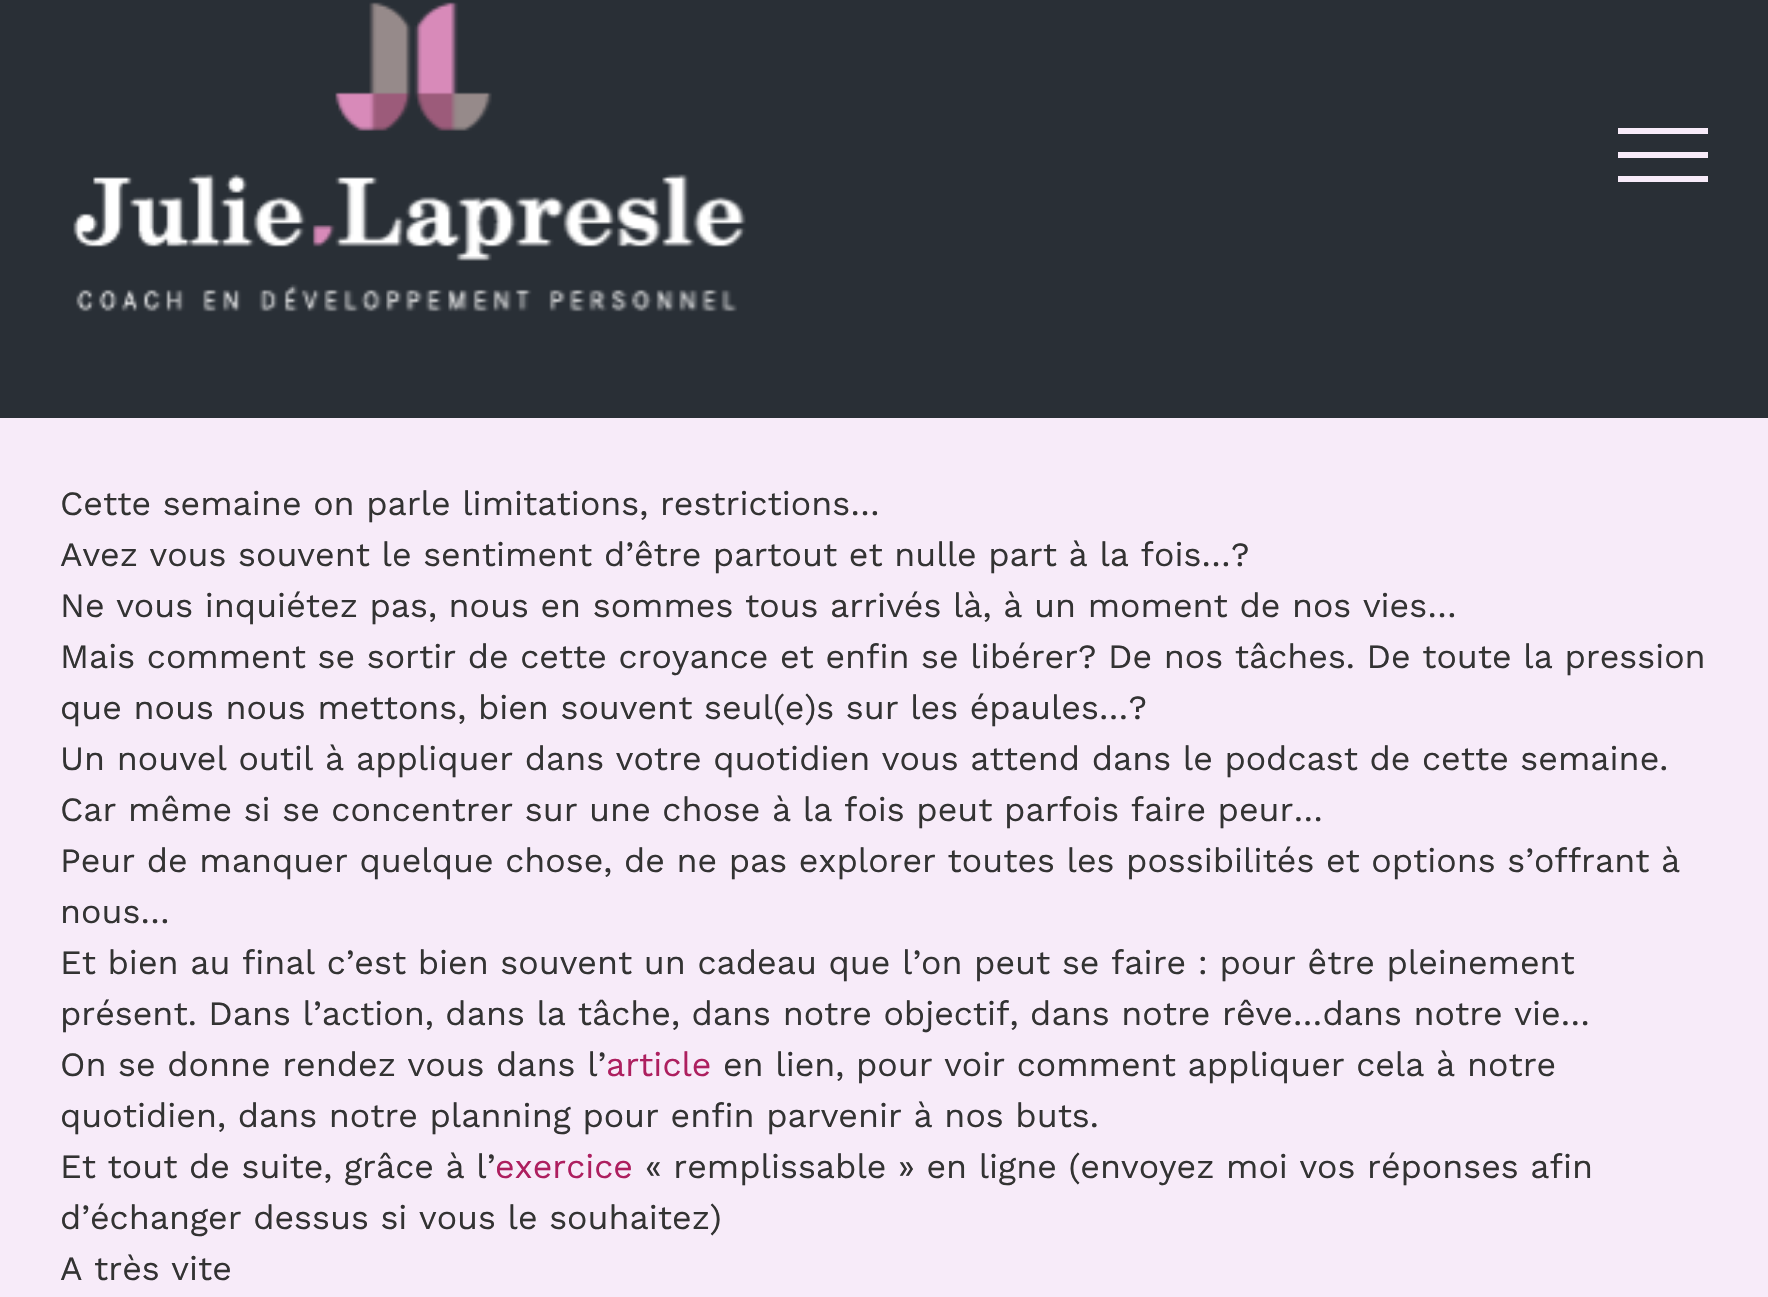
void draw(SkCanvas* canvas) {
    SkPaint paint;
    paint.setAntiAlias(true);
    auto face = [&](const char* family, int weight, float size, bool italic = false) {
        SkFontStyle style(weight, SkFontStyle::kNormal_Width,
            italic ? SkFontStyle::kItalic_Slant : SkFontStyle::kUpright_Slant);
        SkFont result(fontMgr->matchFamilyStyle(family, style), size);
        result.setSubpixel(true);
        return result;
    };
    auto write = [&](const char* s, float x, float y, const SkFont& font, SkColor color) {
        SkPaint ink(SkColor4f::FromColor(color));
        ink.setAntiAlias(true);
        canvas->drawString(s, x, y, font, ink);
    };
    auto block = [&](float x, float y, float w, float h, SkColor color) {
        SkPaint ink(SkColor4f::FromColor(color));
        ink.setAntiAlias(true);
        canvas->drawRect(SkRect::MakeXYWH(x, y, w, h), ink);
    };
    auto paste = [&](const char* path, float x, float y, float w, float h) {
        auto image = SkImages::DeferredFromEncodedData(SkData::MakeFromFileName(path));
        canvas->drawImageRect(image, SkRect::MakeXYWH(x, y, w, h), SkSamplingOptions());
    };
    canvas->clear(SkColorSetRGB(247, 235, 249));
    block(0, 0, 1768, 418, SkColorSetRGB(41, 47, 54));
    paste("pic1.png", 73, 2, 673, 310);
    block(1618, 128, 90, 6, SkColorSetRGB(247, 235, 249));
    block(1618, 152, 90, 6, SkColorSetRGB(247, 235, 249));
    block(1618, 176, 90, 6, SkColorSetRGB(247, 235, 249));
    auto kFont1 = face("Work Sans", 400, 34);
    write("Cette semaine on parle limitations, restrictions…", 60, 515, kFont1, SkColorSetRGB(51, 51, 51));
    write("Avez vous souvent le sentiment d’être partout et nulle part à la fois…?", 60, 566, kFont1, SkColorSetRGB(51, 51, 51));
    write("Ne vous inquiétez pas, nous en sommes tous arrivés là, à un moment de nos vies…", 60, 617, kFont1, SkColorSetRGB(51, 51, 51));
    write("Mais comment se sortir de cette croyance et enfin se libérer? De nos tâches. De toute la pression", 60, 668, kFont1, SkColorSetRGB(51, 51, 51));
    write("que nous nous mettons, bien souvent seul(e)s sur les épaules…?", 60, 719, kFont1, SkColorSetRGB(51, 51, 51));
    write("Un nouvel outil à appliquer dans votre quotidien vous attend dans le podcast de cette semaine.", 60, 770, kFont1, SkColorSetRGB(51, 51, 51));
    write("Car même si se concentrer sur une chose à la fois peut parfois faire peur…", 60, 821, kFont1, SkColorSetRGB(51, 51, 51));
    write("Peur de manquer quelque chose, de ne pas explorer toutes les possibilités et options s’offrant à", 60, 872, kFont1, SkColorSetRGB(51, 51, 51));
    write("nous…", 60, 923, kFont1, SkColorSetRGB(51, 51, 51));
    write("Et bien au final c’est bien souvent un cadeau que l’on peut se faire : pour être pleinement", 60, 974, kFont1, SkColorSetRGB(51, 51, 51));
    write("présent. Dans l’action, dans la tâche, dans notre objectif, dans notre rêve…dans notre vie…", 60, 1025, kFont1, SkColorSetRGB(51, 51, 51));
    write("On se donne rendez vous dans l’", 60, 1076, kFont1, SkColorSetRGB(51, 51, 51));
    write("article", 606, 1076, kFont1, SkColorSetRGB(173, 31, 95));
    write("en lien, pour voir comment appliquer cela à notre", 723, 1076, kFont1, SkColorSetRGB(51, 51, 51));
    write("quotidien, dans notre planning pour enfin parvenir à nos buts.", 60, 1127, kFont1, SkColorSetRGB(51, 51, 51));
    write("Et tout de suite, grâce à l’", 60, 1178, kFont1, SkColorSetRGB(51, 51, 51));
    write("exercice", 495, 1178, kFont1, SkColorSetRGB(173, 31, 95));
    write("« remplissable » en ligne (envoyez moi vos réponses afin", 645, 1178, kFont1, SkColorSetRGB(51, 51, 51));
    write("d’échanger dessus si vous le souhaitez)", 60, 1229, kFont1, SkColorSetRGB(51, 51, 51));
    write("A très vite", 60, 1280, kFont1, SkColorSetRGB(51, 51, 51));
}
